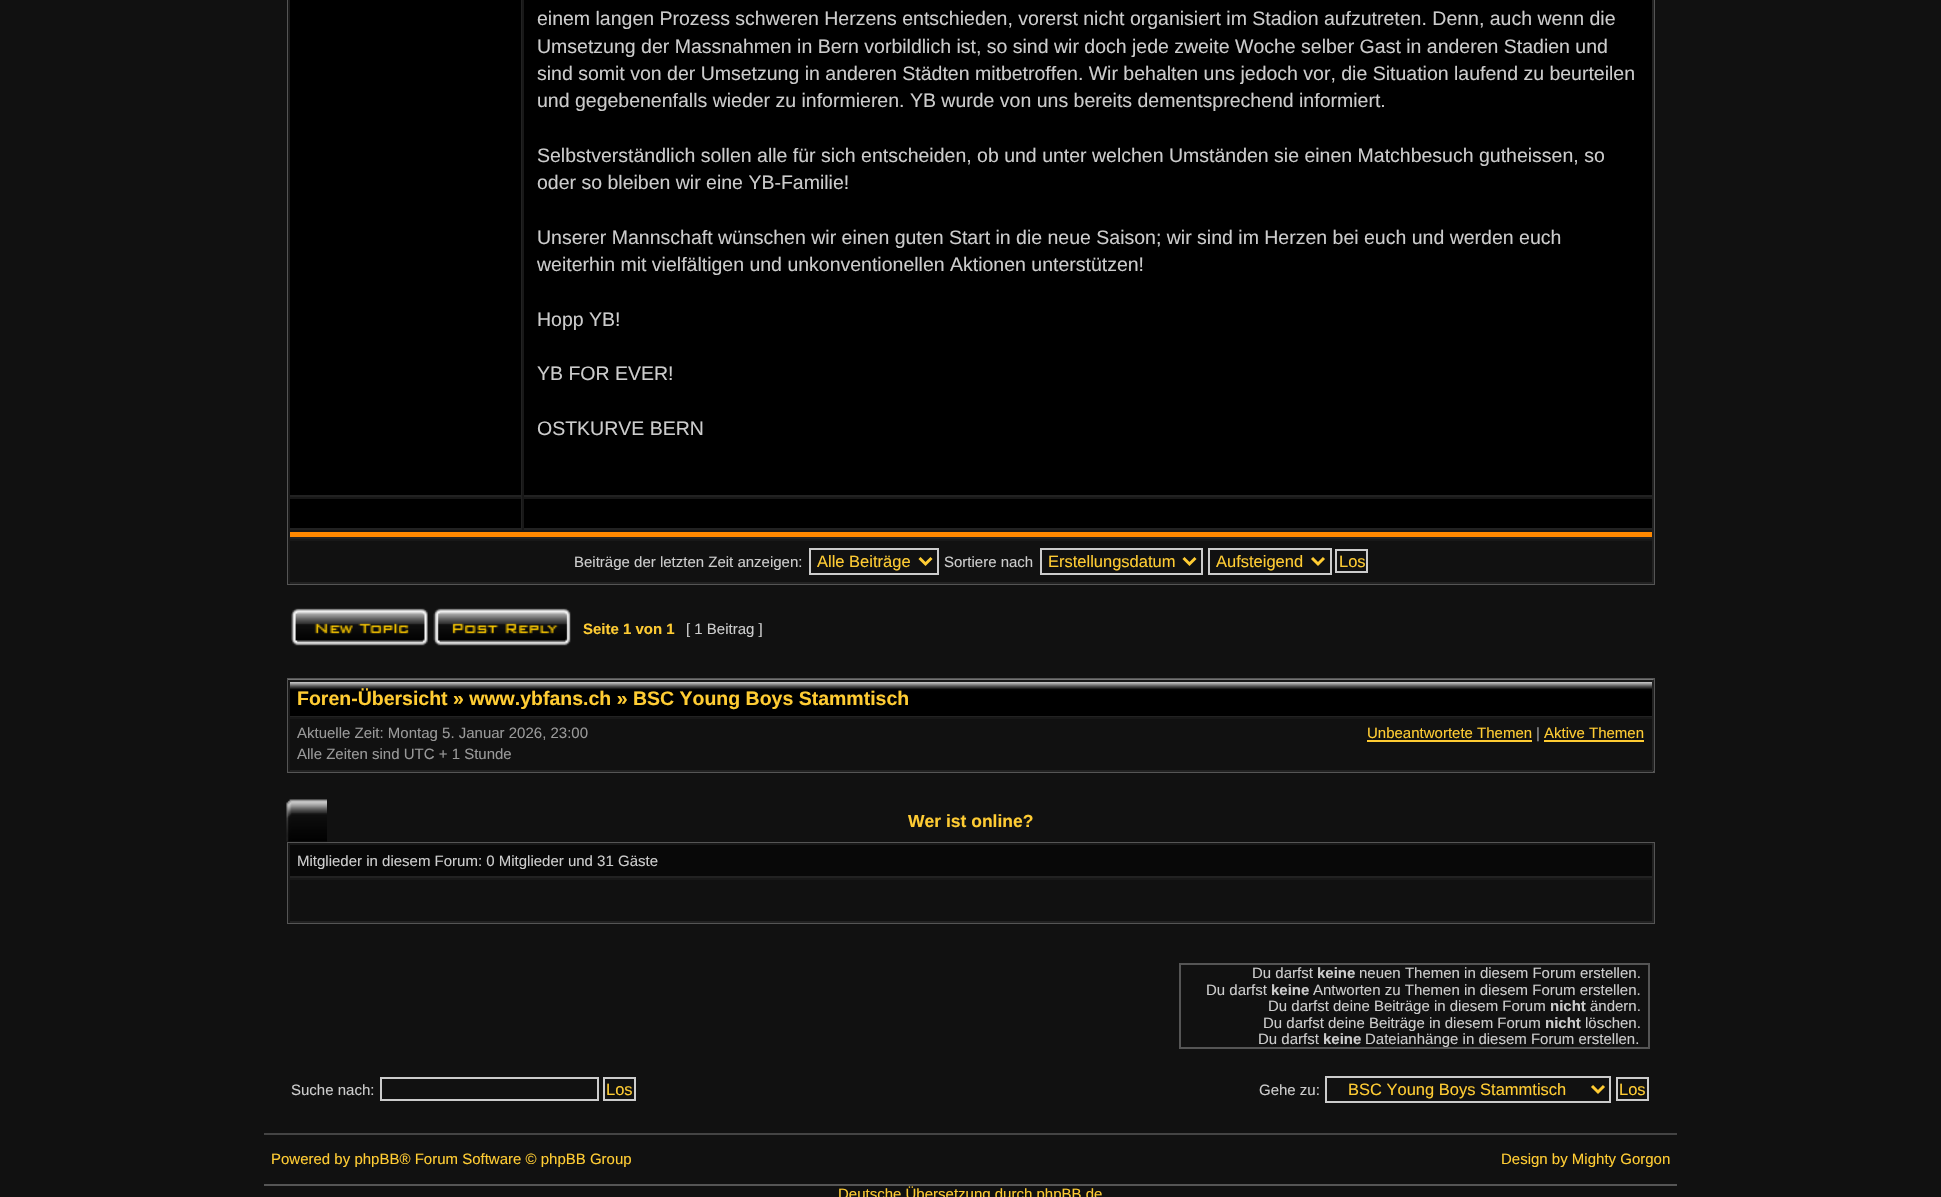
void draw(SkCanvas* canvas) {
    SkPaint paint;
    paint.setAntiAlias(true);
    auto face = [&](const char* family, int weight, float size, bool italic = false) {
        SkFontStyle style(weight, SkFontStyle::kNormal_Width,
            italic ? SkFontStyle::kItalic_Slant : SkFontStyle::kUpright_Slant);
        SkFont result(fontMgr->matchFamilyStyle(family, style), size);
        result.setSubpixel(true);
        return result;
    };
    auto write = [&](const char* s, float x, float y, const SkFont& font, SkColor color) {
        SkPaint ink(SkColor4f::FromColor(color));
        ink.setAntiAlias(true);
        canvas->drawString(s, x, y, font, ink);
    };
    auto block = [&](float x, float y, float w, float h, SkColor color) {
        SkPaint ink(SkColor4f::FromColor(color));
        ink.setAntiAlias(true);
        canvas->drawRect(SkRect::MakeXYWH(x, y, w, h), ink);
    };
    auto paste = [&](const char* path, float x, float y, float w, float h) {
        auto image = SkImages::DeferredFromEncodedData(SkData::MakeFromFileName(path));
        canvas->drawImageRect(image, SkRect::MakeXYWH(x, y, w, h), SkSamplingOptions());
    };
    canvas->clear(SkColorSetRGB(17, 17, 17));
    paint.setStyle(SkPaint::kStroke_Style);
    paint.setStrokeWidth(2);
    paint.setColor(SkColorSetRGB(85, 85, 85));
    canvas->drawRect(SkRect::MakeXYWH(288, -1, 1366, 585), paint);
    block(290, 0, 231, 495, SK_ColorBLACK);
    block(521, 0, 1, 497, SkColorSetRGB(34, 34, 34));
    block(288, 495, 234, 2, SkColorSetRGB(34, 34, 34));
    block(288, 0, 2, 497, SkColorSetRGB(24, 24, 24));
    block(524, 0, 1128, 495, SK_ColorBLACK);
    block(1652, 0, 2, 497, SkColorSetRGB(34, 34, 34));
    block(522, 495, 1131, 2, SkColorSetRGB(34, 34, 34));
    block(522, 0, 2, 497, SkColorSetRGB(24, 24, 24));
    auto kFont1 = face("Liberation Sans", 400, 19.5f);
    write("einem langen Prozess schweren Herzens entschieden, vorerst nicht organisiert im Stadion aufzutreten. Denn, auch wenn die", 537, 25, kFont1, SkColorSetRGB(204, 204, 204));
    write("Umsetzung der Massnahmen in Bern vorbildlich ist, so sind wir doch jede zweite Woche selber Gast in anderen Stadien und", 537, 53, kFont1, SkColorSetRGB(204, 204, 204));
    write("sind somit von der Umsetzung in anderen Städten mitbetroffen. Wir behalten uns jedoch vor, die Situation laufend zu beurteilen", 537, 80, kFont1, SkColorSetRGB(204, 204, 204));
    write("und gegebenenfalls wieder zu informieren. YB wurde von uns bereits dementsprechend informiert.", 537, 107, kFont1, SkColorSetRGB(204, 204, 204));
    write("Selbstverständlich sollen alle für sich entscheiden, ob und unter welchen Umständen sie einen Matchbesuch gutheissen, so", 537, 162, kFont1, SkColorSetRGB(204, 204, 204));
    write("oder so bleiben wir eine YB-Familie!", 537, 189, kFont1, SkColorSetRGB(204, 204, 204));
    write("Unserer Mannschaft wünschen wir einen guten Start in die neue Saison; wir sind im Herzen bei euch und werden euch", 537, 244, kFont1, SkColorSetRGB(204, 204, 204));
    write("weiterhin mit vielfältigen und unkonventionellen Aktionen unterstützen!", 537, 271, kFont1, SkColorSetRGB(204, 204, 204));
    write("Hopp YB!", 537, 326, kFont1, SkColorSetRGB(204, 204, 204));
    write("YB FOR EVER!", 537, 380, kFont1, SkColorSetRGB(204, 204, 204));
    write("OSTKURVE BERN", 537, 435, kFont1, SkColorSetRGB(204, 204, 204));
    block(290, 499, 231, 29, SK_ColorBLACK);
    block(288, 497, 1365, 2, SkColorSetRGB(24, 24, 24));
    block(521, 497, 1, 33, SkColorSetRGB(34, 34, 34));
    block(288, 528, 234, 2, SkColorSetRGB(34, 34, 34));
    block(288, 497, 2, 33, SkColorSetRGB(24, 24, 24));
    block(524, 499, 1128, 29, SK_ColorBLACK);
    block(1652, 497, 2, 33, SkColorSetRGB(34, 34, 34));
    block(522, 528, 1131, 2, SkColorSetRGB(34, 34, 34));
    block(522, 497, 2, 33, SkColorSetRGB(24, 24, 24));
    block(290, 532, 1362, 5, SkColorSetRGB(255, 136, 0));
    block(288, 530, 1365, 2, SkColorSetRGB(24, 24, 24));
    block(1652, 530, 2, 9, SkColorSetRGB(34, 34, 34));
    block(288, 537, 1365, 2, SkColorSetRGB(34, 34, 34));
    block(288, 530, 2, 9, SkColorSetRGB(24, 24, 24));
    block(288, 539, 1365, 2, SkColorSetRGB(24, 24, 24));
    block(1652, 539, 2, 45, SkColorSetRGB(34, 34, 34));
    block(288, 582, 1365, 2, SkColorSetRGB(34, 34, 34));
    block(288, 539, 2, 45, SkColorSetRGB(24, 24, 24));
    auto kFont2 = face("Liberation Sans", 400, 15);
    write("Beiträge der letzten Zeit anzeigen:", 574, 567, kFont2, SkColorSetRGB(204, 204, 204));
    paint.setColor(SkColorSetRGB(204, 204, 204));
    canvas->drawRect(SkRect::MakeXYWH(810, 549, 128, 25), paint);
    paint.setStrokeWidth(3);
    paint.setColor(SkColorSetRGB(255, 204, 51));
    canvas->drawPath(SkPathBuilder().moveTo(919.5f, 558).lineTo(925.5f, 564).lineTo(931.5f, 558).detach(), paint);
    auto kFont3 = face("Liberation Sans", 400, 16.5f);
    write("Alle Beiträge", 817, 567, kFont3, SkColorSetRGB(255, 204, 51));
    write("Sortiere nach", 944, 567, kFont2, SkColorSetRGB(204, 204, 204));
    paint.setStrokeWidth(2);
    paint.setColor(SkColorSetRGB(204, 204, 204));
    canvas->drawRect(SkRect::MakeXYWH(1041, 549, 161, 25), paint);
    paint.setStrokeWidth(3);
    paint.setColor(SkColorSetRGB(255, 204, 51));
    canvas->drawPath(SkPathBuilder().moveTo(1183.5f, 558).lineTo(1189.5f, 564).lineTo(1195.5f, 558).detach(), paint);
    write("Erstellungsdatum", 1048, 567, kFont3, SkColorSetRGB(255, 204, 51));
    paint.setStrokeWidth(2);
    paint.setColor(SkColorSetRGB(204, 204, 204));
    canvas->drawRect(SkRect::MakeXYWH(1209, 549, 122, 25), paint);
    paint.setStrokeWidth(3);
    paint.setColor(SkColorSetRGB(255, 204, 51));
    canvas->drawPath(SkPathBuilder().moveTo(1312, 558).lineTo(1318, 564).lineTo(1324, 558).detach(), paint);
    write("Aufsteigend", 1216, 567, kFont3, SkColorSetRGB(255, 204, 51));
    paint.setStrokeWidth(2);
    paint.setColor(SkColorSetRGB(204, 204, 204));
    canvas->drawRect(SkRect::MakeXYWH(1336, 550, 31, 22), paint);
    write("Los", 1339, 567, kFont3, SkColorSetRGB(255, 204, 51));
    paste("pic1.png", 291, 608, 137, 38);
    paste("pic2.png", 433, 608, 138, 38);
    auto kFont4 = face("Liberation Sans", 700, 15);
    write("Seite 1 von 1", 583, 634, kFont4, SkColorSetRGB(255, 204, 51));
    write("[ 1 Beitrag ]", 686, 634, kFont2, SkColorSetRGB(204, 204, 204));
    paint.setColor(SkColorSetRGB(85, 85, 85));
    canvas->drawRect(SkRect::MakeXYWH(288, 679, 1366, 93), paint);
    paste("pic3.png", 288, 679, 1365, 37);
    block(288, 680, 1365, 2, SkColorSetRGB(24, 24, 24));
    block(1652, 680, 2, 37, SkColorSetRGB(34, 34, 34));
    block(288, 716, 1365, 1, SkColorSetRGB(34, 34, 34));
    block(288, 680, 2, 37, SkColorSetRGB(24, 24, 24));
    auto kFont5 = face("Liberation Sans", 700, 19.5f);
    write("Foren-Übersicht » www.ybfans.ch » BSC Young Boys Stammtisch", 297, 705, kFont5, SkColorSetRGB(255, 204, 51));
    block(288, 717, 1365, 2, SkColorSetRGB(24, 24, 24));
    block(1652, 717, 2, 54, SkColorSetRGB(34, 34, 34));
    block(288, 770, 1365, 2, SkColorSetRGB(34, 34, 34));
    block(288, 717, 2, 54, SkColorSetRGB(24, 24, 24));
    write("Aktuelle Zeit: Montag 5. Januar 2026, 23:00", 297, 738, kFont2, SkColorSetRGB(153, 153, 153));
    write("Alle Zeiten sind UTC + 1 Stunde", 297, 759, kFont2, SkColorSetRGB(153, 153, 153));
    write("Unbeantwortete Themen", 1367, 738, kFont2, SkColorSetRGB(255, 204, 51));
    block(1367, 740, 165, 2, SkColorSetRGB(255, 204, 51));
    write("|", 1536, 738, kFont2, SkColorSetRGB(153, 153, 153));
    write("Aktive Themen", 1544, 738, kFont2, SkColorSetRGB(255, 204, 51));
    block(1544, 740, 100, 2, SkColorSetRGB(255, 204, 51));
    paste("pic4.png", 286, 799, 41, 43);
    auto kFont6 = face("Liberation Sans", 700, 17.5f);
    write("Wer ist online?", 908, 827, kFont6, SkColorSetRGB(255, 204, 51));
    canvas->drawRect(SkRect::MakeXYWH(288, 843, 1366, 80), paint);
    block(290, 845, 1362, 31, SkColorSetRGB(8, 8, 8));
    block(288, 843, 1365, 2, SkColorSetRGB(24, 24, 24));
    block(1652, 843, 2, 35, SkColorSetRGB(34, 34, 34));
    block(288, 876, 1365, 2, SkColorSetRGB(34, 34, 34));
    block(288, 843, 2, 35, SkColorSetRGB(24, 24, 24));
    write("Mitglieder in diesem Forum: 0 Mitglieder und 31 Gäste", 297, 866, kFont2, SkColorSetRGB(204, 204, 204));
    block(288, 878, 1365, 2, SkColorSetRGB(24, 24, 24));
    block(1652, 878, 2, 45, SkColorSetRGB(34, 34, 34));
    block(288, 921, 1365, 2, SkColorSetRGB(34, 34, 34));
    block(288, 878, 2, 45, SkColorSetRGB(24, 24, 24));
    canvas->drawRect(SkRect::MakeXYWH(1180, 964, 469, 84), paint);
    write("Du darfst", 1252, 978, kFont2, SkColorSetRGB(204, 204, 204));
    write("keine", 1317, 978, kFont4, SkColorSetRGB(204, 204, 204));
    write("neuen Themen in diesem Forum erstellen.", 1359, 978, kFont2, SkColorSetRGB(204, 204, 204));
    write("Du darfst", 1206, 995, kFont2, SkColorSetRGB(204, 204, 204));
    write("keine", 1271, 995, kFont4, SkColorSetRGB(204, 204, 204));
    write("Antworten zu Themen in diesem Forum erstellen.", 1313, 995, kFont2, SkColorSetRGB(204, 204, 204));
    write("Du darfst deine Beiträge in diesem Forum", 1268, 1011, kFont2, SkColorSetRGB(204, 204, 204));
    write("nicht", 1550, 1011, kFont4, SkColorSetRGB(204, 204, 204));
    write("ändern.", 1590, 1011, kFont2, SkColorSetRGB(204, 204, 204));
    write("Du darfst deine Beiträge in diesem Forum", 1263, 1028, kFont2, SkColorSetRGB(204, 204, 204));
    write("nicht", 1545, 1028, kFont4, SkColorSetRGB(204, 204, 204));
    write("löschen.", 1585, 1028, kFont2, SkColorSetRGB(204, 204, 204));
    write("Du darfst", 1258, 1044, kFont2, SkColorSetRGB(204, 204, 204));
    write("keine", 1323, 1044, kFont4, SkColorSetRGB(204, 204, 204));
    write("Dateianhänge in diesem Forum erstellen.", 1365, 1044, kFont2, SkColorSetRGB(204, 204, 204));
    write("Suche nach:", 291, 1095, kFont2, SkColorSetRGB(204, 204, 204));
    paint.setColor(SkColorSetRGB(204, 204, 204));
    canvas->drawRect(SkRect::MakeXYWH(381, 1078, 217, 22), paint);
    canvas->drawRect(SkRect::MakeXYWH(604, 1078, 31, 22), paint);
    write("Los", 606, 1095, kFont3, SkColorSetRGB(255, 204, 51));
    write("Gehe zu:", 1259, 1095, kFont2, SkColorSetRGB(204, 204, 204));
    canvas->drawRect(SkRect::MakeXYWH(1326, 1077, 284, 25), paint);
    paint.setStrokeWidth(3);
    paint.setColor(SkColorSetRGB(255, 204, 51));
    canvas->drawPath(SkPathBuilder().moveTo(1592, 1086).lineTo(1598, 1092).lineTo(1604, 1086).detach(), paint);
    write("BSC Young Boys Stammtisch", 1348, 1095, kFont3, SkColorSetRGB(255, 204, 51));
    paint.setStrokeWidth(2);
    paint.setColor(SkColorSetRGB(204, 204, 204));
    canvas->drawRect(SkRect::MakeXYWH(1617, 1078, 31, 22), paint);
    write("Los", 1619, 1095, kFont3, SkColorSetRGB(255, 204, 51));
    block(264, 1133, 1413, 2, SkColorSetRGB(68, 68, 68));
    block(264, 1184, 1413, 2, SkColorSetRGB(85, 85, 85));
    write("Powered by phpBB® Forum Software © phpBB Group", 271, 1164, kFont2, SkColorSetRGB(255, 204, 51));
    write("Design by Mighty Gorgon", 1501, 1164, kFont2, SkColorSetRGB(255, 204, 51));
    write("Deutsche Übersetzung durch phpBB.de", 838, 1199, kFont2, SkColorSetRGB(255, 204, 51));
}
